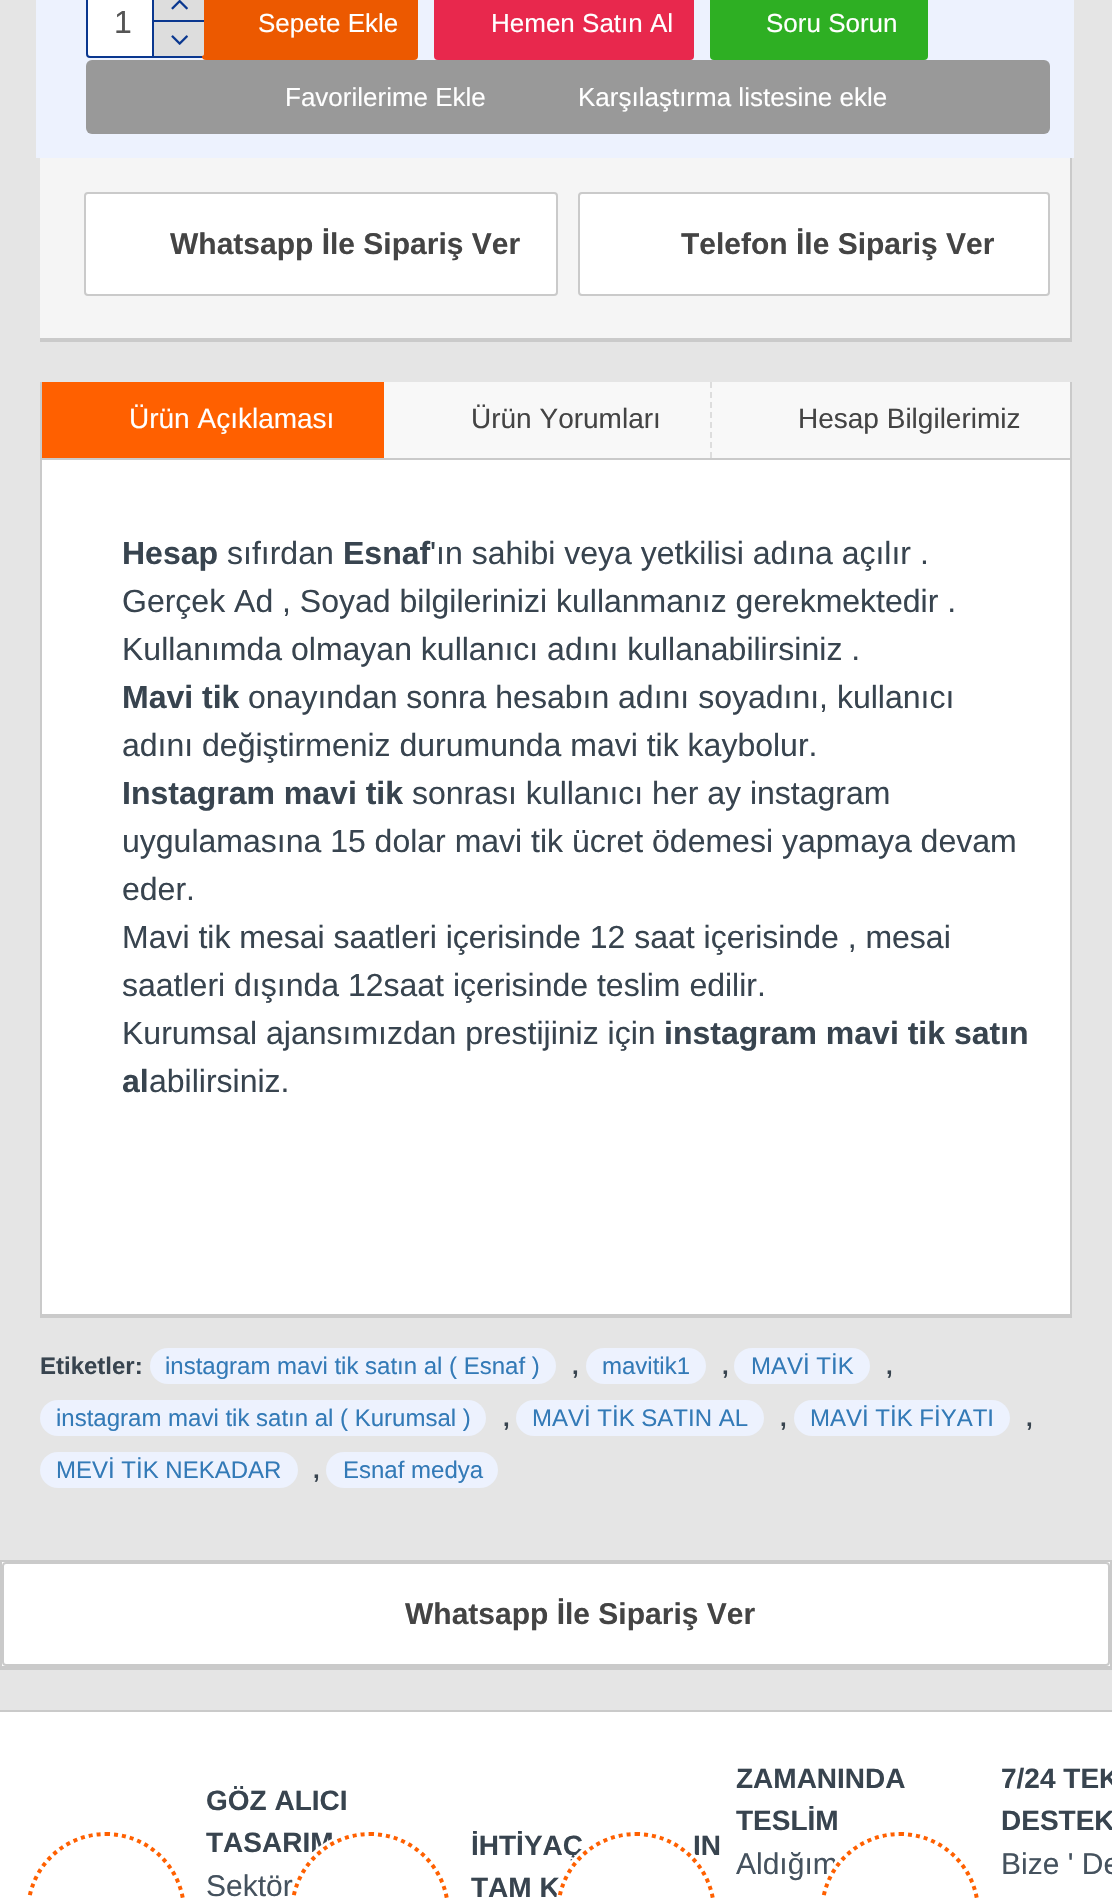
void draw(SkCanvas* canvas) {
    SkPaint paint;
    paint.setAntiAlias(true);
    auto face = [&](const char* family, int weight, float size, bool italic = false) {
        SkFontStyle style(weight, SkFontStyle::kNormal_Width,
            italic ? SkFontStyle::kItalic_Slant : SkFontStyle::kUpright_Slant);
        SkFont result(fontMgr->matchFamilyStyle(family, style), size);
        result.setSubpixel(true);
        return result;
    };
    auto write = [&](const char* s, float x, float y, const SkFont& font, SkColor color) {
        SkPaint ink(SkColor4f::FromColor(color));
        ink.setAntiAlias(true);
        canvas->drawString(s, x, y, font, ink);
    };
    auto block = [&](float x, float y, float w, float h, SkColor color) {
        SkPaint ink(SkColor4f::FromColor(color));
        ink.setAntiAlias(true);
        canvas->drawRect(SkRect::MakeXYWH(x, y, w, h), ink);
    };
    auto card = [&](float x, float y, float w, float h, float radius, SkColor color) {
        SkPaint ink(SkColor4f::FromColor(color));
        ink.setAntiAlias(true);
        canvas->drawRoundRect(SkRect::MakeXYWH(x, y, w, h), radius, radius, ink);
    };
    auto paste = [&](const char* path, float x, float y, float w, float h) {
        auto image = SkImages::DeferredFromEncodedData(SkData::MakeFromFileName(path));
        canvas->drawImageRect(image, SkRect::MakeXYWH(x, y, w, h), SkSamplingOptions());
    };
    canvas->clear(SkColorSetRGB(229, 229, 229));
    block(40, 158, 1030, 180, SkColorSetRGB(245, 245, 245));
    block(1070, 158, 2, 184, SkColorSetRGB(202, 202, 202));
    block(40, 338, 1032, 4, SkColorSetRGB(202, 202, 202));
    block(36, 0, 1038, 158, SkColorSetRGB(237, 242, 254));
    paint.setStyle(SkPaint::kStroke_Style);
    paint.setStrokeWidth(2);
    paint.setColor(SkColorSetRGB(10, 55, 143));
    canvas->drawRoundRect(SkRect::MakeXYWH(87, -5, 118, 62), 3, 3, paint);
    card(86, 60, 964, 74, 6, SkColorSetRGB(153, 153, 153));
    canvas->save();
    canvas->clipPath(SkPathBuilder().moveTo(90, -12).lineTo(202, -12).cubicTo(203, -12, 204, -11, 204, -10).lineTo(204, 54).cubicTo(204, 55, 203, 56, 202, 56).lineTo(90, 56).cubicTo(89, 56, 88, 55, 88, 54).lineTo(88, -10).cubicTo(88, -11, 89, -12, 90, -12).close().detach(), true);
    paint.setStyle(SkPaint::kFill_Style);
    paint.setColor(SkColorSetARGB(38, 0, 0, 0));
    paint.setMaskFilter(SkMaskFilter::MakeBlur(kNormal_SkBlurStyle, 15));
    canvas->drawRect(SkRect::MakeXYWH(92, -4, 108, 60), paint);
    paint.setMaskFilter(nullptr);
    canvas->restore();
    card(88, -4, 116, 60, 4, SK_ColorWHITE);
    auto kFont1 = face("Liberation Sans", 400, 32);
    write("1", 114, 33, kFont1, SkColorSetRGB(85, 85, 85));
    block(152, 0, 2, 56, SkColorSetRGB(10, 55, 143));
    card(202, -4, 216, 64, 4, SkColorSetRGB(236, 89, 0));
    block(154, 0, 50, 20, SkColorSetRGB(221, 221, 221));
    block(154, 20, 50, 2, SkColorSetRGB(10, 55, 143));
    paste("pic1.png", 171, 0, 17, 10);
    paint.setColor(SkColorSetRGB(221, 221, 221));
    canvas->drawPath(SkPathBuilder().moveTo(154, 22).lineTo(204, 22).lineTo(204, 54).cubicTo(204, 55, 203, 56, 202, 56).lineTo(154, 56).close().detach(), paint);
    paste("pic2.png", 171, 35, 17, 10);
    auto kFont2 = face("Liberation Sans", 400, 26);
    write("Sepete Ekle", 258, 32, kFont2, SK_ColorWHITE);
    card(434, -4, 260, 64, 4, SkColorSetRGB(232, 40, 77));
    write("Hemen Satın Al", 491, 32, kFont2, SK_ColorWHITE);
    card(710, -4, 218, 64, 4, SkColorSetRGB(46, 175, 35));
    write("Soru Sorun", 766, 32, kFont2, SK_ColorWHITE);
    write("Favorilerime Ekle", 285, 106, kFont2, SK_ColorWHITE);
    write("Karşılaştırma listesine ekle", 578, 106, kFont2, SK_ColorWHITE);
    paint.setColor(SK_ColorWHITE);
    canvas->drawRoundRect(SkRect::MakeXYWH(85, 193, 472, 102), 3, 3, paint);
    paint.setStyle(SkPaint::kStroke_Style);
    paint.setColor(SkColorSetRGB(202, 202, 202));
    canvas->drawRoundRect(SkRect::MakeXYWH(85, 193, 472, 102), 3, 3, paint);
    auto kFont3 = face("Liberation Sans", 700, 30);
    write("Whatsapp İle Sipariş Ver", 170, 254, kFont3, SkColorSetRGB(68, 68, 68));
    paint.setStyle(SkPaint::kFill_Style);
    paint.setColor(SK_ColorWHITE);
    canvas->drawRoundRect(SkRect::MakeXYWH(579, 193, 470, 102), 3, 3, paint);
    paint.setStyle(SkPaint::kStroke_Style);
    paint.setColor(SkColorSetRGB(202, 202, 202));
    canvas->drawRoundRect(SkRect::MakeXYWH(579, 193, 470, 102), 3, 3, paint);
    write("Telefon İle Sipariş Ver", 681, 254, kFont3, SkColorSetRGB(68, 68, 68));
    block(42, 460, 1028, 854, SK_ColorWHITE);
    block(1070, 382, 2, 936, SkColorSetRGB(202, 202, 202));
    block(40, 1314, 1032, 4, SkColorSetRGB(202, 202, 202));
    block(40, 382, 2, 936, SkColorSetRGB(202, 202, 202));
    block(384, 382, 686, 76, SkColorSetRGB(248, 248, 248));
    block(42, 458, 1028, 2, SkColorSetRGB(202, 202, 202));
    block(42, 382, 342, 76, SkColorSetRGB(255, 96, 0));
    auto kFont4 = face("Liberation Sans", 400, 28);
    write("Ürün Açıklaması", 129, 428, kFont4, SK_ColorWHITE);
    paint.setColor(SkColorSetRGB(221, 221, 221));
    paint.setPathEffect(SkDashPathEffect::Make({{6, 4}}, 0));
    canvas->drawPath(SkPathBuilder().moveTo(711, 382).lineTo(711, 458).detach(), paint);
    paint.setPathEffect(nullptr);
    write("Ürün Yorumları", 471, 428, kFont4, SkColorSetRGB(68, 68, 68));
    write("Hesap Bilgilerimiz", 798, 428, kFont4, SkColorSetRGB(68, 68, 68));
    auto kFont5 = face("Liberation Sans", 700, 32);
    write("Hesap", 122, 564, kFont5, SkColorSetRGB(56, 68, 79));
    write("sıfırdan", 227, 564, kFont1, SkColorSetRGB(56, 68, 79));
    write("Esnaf", 343, 564, kFont5, SkColorSetRGB(56, 68, 79));
    write("'ın sahibi veya yetkilisi adına açılır .", 430, 564, kFont1, SkColorSetRGB(56, 68, 79));
    write("Gerçek Ad , Soyad bilgilerinizi kullanmanız gerekmektedir .", 122, 612, kFont1, SkColorSetRGB(56, 68, 79));
    write("Kullanımda olmayan kullanıcı adını kullanabilirsiniz .", 122, 660, kFont1, SkColorSetRGB(56, 68, 79));
    write("Mavi tik", 122, 708, kFont5, SkColorSetRGB(56, 68, 79));
    write("onayından sonra hesabın adını soyadını, kullanıcı", 248, 708, kFont1, SkColorSetRGB(56, 68, 79));
    write("adını değiştirmeniz durumunda mavi tik kaybolur.", 122, 756, kFont1, SkColorSetRGB(56, 68, 79));
    write("Instagram mavi tik", 122, 804, kFont5, SkColorSetRGB(56, 68, 79));
    write("sonrası kullanıcı her ay instagram", 412, 804, kFont1, SkColorSetRGB(56, 68, 79));
    write("uygulamasına 15 dolar mavi tik ücret ödemesi yapmaya devam", 122, 852, kFont1, SkColorSetRGB(56, 68, 79));
    write("eder.", 122, 900, kFont1, SkColorSetRGB(56, 68, 79));
    write("Mavi tik mesai saatleri içerisinde 12 saat içerisinde , mesai", 122, 948, kFont1, SkColorSetRGB(56, 68, 79));
    write("saatleri dışında 12saat içerisinde teslim edilir.", 122, 996, kFont1, SkColorSetRGB(56, 68, 79));
    write("Kurumsal ajansımızdan prestijiniz için", 122, 1044, kFont1, SkColorSetRGB(56, 68, 79));
    write("instagram mavi tik satın", 664, 1044, kFont5, SkColorSetRGB(56, 68, 79));
    write("al", 122, 1092, kFont5, SkColorSetRGB(56, 68, 79));
    write("abilirsiniz.", 149, 1092, kFont1, SkColorSetRGB(56, 68, 79));
    auto kFont6 = face("Liberation Sans", 700, 24);
    write("Etiketler:", 40, 1374, kFont6, SkColorSetRGB(56, 68, 79));
    card(150, 1348, 406, 36, 18, SkColorSetRGB(237, 242, 254));
    auto kFont7 = face("Liberation Sans", 400, 24);
    write("instagram mavi tik satın al ( Esnaf )", 165, 1374, kFont7, SkColorSetRGB(51, 122, 183));
    write(",", 572, 1374, kFont6, SkColorSetRGB(56, 68, 79));
    card(586, 1348, 120, 36, 18, SkColorSetRGB(237, 242, 254));
    write("mavitik1", 602, 1374, kFont7, SkColorSetRGB(51, 122, 183));
    write(",", 722, 1374, kFont6, SkColorSetRGB(56, 68, 79));
    card(734, 1348, 136, 36, 18, SkColorSetRGB(237, 242, 254));
    write("MAVİ TİK", 751, 1374, kFont7, SkColorSetRGB(51, 122, 183));
    write(",", 886, 1374, kFont6, SkColorSetRGB(56, 68, 79));
    card(40, 1400, 446, 36, 18, SkColorSetRGB(237, 242, 254));
    write("instagram mavi tik satın al ( Kurumsal )", 56, 1426, kFont7, SkColorSetRGB(51, 122, 183));
    write(",", 503, 1426, kFont6, SkColorSetRGB(56, 68, 79));
    card(516, 1400, 248, 36, 18, SkColorSetRGB(237, 242, 254));
    write("MAVİ TİK SATIN AL", 532, 1426, kFont7, SkColorSetRGB(51, 122, 183));
    write(",", 780, 1426, kFont6, SkColorSetRGB(56, 68, 79));
    card(794, 1400, 216, 36, 18, SkColorSetRGB(237, 242, 254));
    write("MAVİ TİK FİYATI", 810, 1426, kFont7, SkColorSetRGB(51, 122, 183));
    write(",", 1026, 1426, kFont6, SkColorSetRGB(56, 68, 79));
    card(40, 1452, 258, 36, 18, SkColorSetRGB(237, 242, 254));
    write("MEVİ TİK NEKADAR", 56, 1478, kFont7, SkColorSetRGB(51, 122, 183));
    write(",", 313, 1478, kFont6, SkColorSetRGB(56, 68, 79));
    card(326, 1452, 172, 36, 18, SkColorSetRGB(237, 242, 254));
    write("Esnaf medya", 343, 1478, kFont7, SkColorSetRGB(51, 122, 183));
    block(2, 1562, 1108, 104, SK_ColorWHITE);
    block(0, 1560, 1112, 2, SkColorSetRGB(202, 202, 202));
    block(1110, 1560, 2, 110, SkColorSetRGB(202, 202, 202));
    block(0, 1666, 1112, 4, SkColorSetRGB(202, 202, 202));
    block(0, 1560, 2, 110, SkColorSetRGB(202, 202, 202));
    paint.setColor(SkColorSetRGB(202, 202, 202));
    canvas->drawRoundRect(SkRect::MakeXYWH(3, 1563, 1106, 102), 3, 3, paint);
    write("Whatsapp İle Sipariş Ver", 405, 1624, kFont3, SkColorSetRGB(68, 68, 68));
    block(0, 1712, 1112, 186, SK_ColorWHITE);
    block(0, 1710, 1112, 2, SkColorSetRGB(202, 202, 202));
    paint.setStrokeWidth(4);
    paint.setColor(SkColorSetRGB(255, 96, 0));
    paint.setPathEffect(SkDashPathEffect::Make({{4, 4}}, 0));
    canvas->drawPath(SkPathBuilder().moveTo(106, 1834).cubicTo(149, 1834, 184, 1869, 184, 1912).cubicTo(184, 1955, 149, 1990, 106, 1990).cubicTo(63, 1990, 28, 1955, 28, 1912).cubicTo(28, 1869, 63, 1834, 106, 1834).close().detach(), paint);
    paint.setPathEffect(nullptr);
    auto kFont8 = face("Liberation Sans", 700, 28);
    write("GÖZ ALICI", 206, 1810, kFont8, SkColorSetRGB(56, 68, 79));
    write("TASARIM", 206, 1852, kFont8, SkColorSetRGB(56, 68, 79));
    auto kFont9 = face("Liberation Sans", 400, 30);
    write("Sektör", 206, 1896, kFont9, SkColorSetRGB(69, 82, 94));
    card(290, 1832, 160, 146, 80, SK_ColorWHITE);
    paint.setPathEffect(SkDashPathEffect::Make({{4, 4}}, 0));
    canvas->drawPath(SkPathBuilder().moveTo(370, 1834).cubicTo(413, 1834, 448, 1869, 448, 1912).cubicTo(448, 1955, 413, 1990, 370, 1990).cubicTo(327, 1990, 292, 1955, 292, 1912).cubicTo(292, 1869, 327, 1834, 370, 1834).close().detach(), paint);
    paint.setPathEffect(nullptr);
    write("İHTİYAÇ", 471, 1855, kFont8, SkColorSetRGB(56, 68, 79));
    write("IN", 693, 1855, kFont8, SkColorSetRGB(56, 68, 79));
    write("TAM K", 471, 1897, kFont8, SkColorSetRGB(56, 68, 79));
    card(556, 1832, 160, 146, 80, SK_ColorWHITE);
    paint.setPathEffect(SkDashPathEffect::Make({{4, 4}}, 0));
    canvas->drawPath(SkPathBuilder().moveTo(636, 1834).cubicTo(679, 1834, 714, 1869, 714, 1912).cubicTo(714, 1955, 679, 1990, 636, 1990).cubicTo(593, 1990, 558, 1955, 558, 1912).cubicTo(558, 1869, 593, 1834, 636, 1834).close().detach(), paint);
    paint.setPathEffect(nullptr);
    write("ZAMANINDA", 736, 1788, kFont8, SkColorSetRGB(56, 68, 79));
    write("TESLİM", 736, 1830, kFont8, SkColorSetRGB(56, 68, 79));
    write("Aldığım", 736, 1874, kFont9, SkColorSetRGB(69, 82, 94));
    write("7/24 TEK", 1001, 1788, kFont8, SkColorSetRGB(56, 68, 79));
    write("DESTEK", 1001, 1830, kFont8, SkColorSetRGB(56, 68, 79));
    write("Bize ' De", 1001, 1874, kFont9, SkColorSetRGB(69, 82, 94));
    card(820, 1832, 160, 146, 80, SK_ColorWHITE);
    paint.setPathEffect(SkDashPathEffect::Make({{4, 4}}, 0));
    canvas->drawPath(SkPathBuilder().moveTo(900, 1834).cubicTo(943, 1834, 978, 1869, 978, 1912).cubicTo(978, 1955, 943, 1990, 900, 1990).cubicTo(857, 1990, 822, 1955, 822, 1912).cubicTo(822, 1869, 857, 1834, 900, 1834).close().detach(), paint);
    paint.setPathEffect(nullptr);
}
